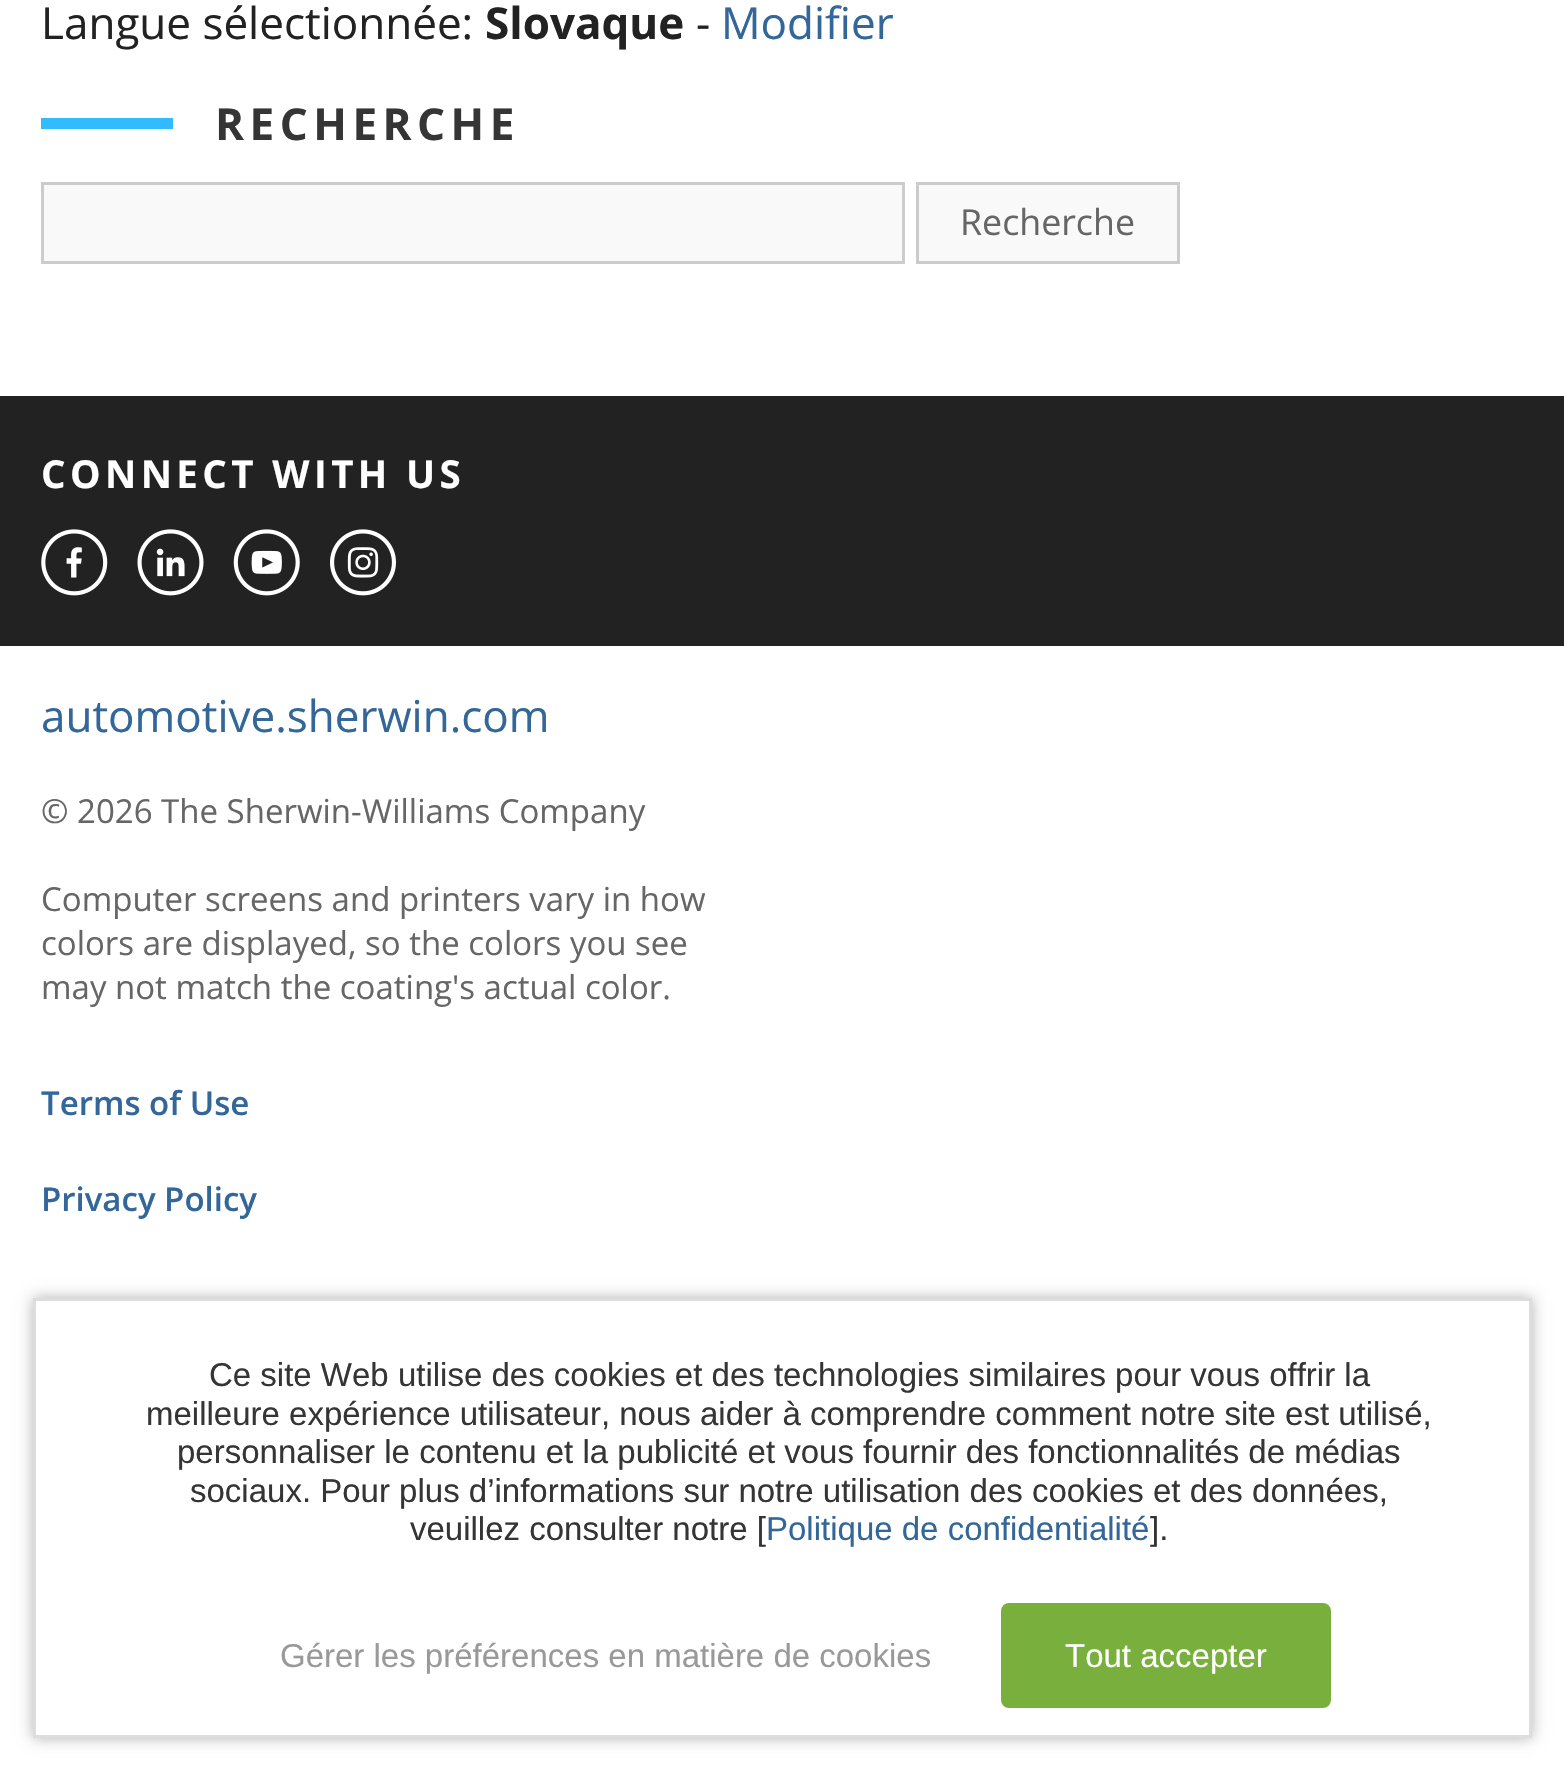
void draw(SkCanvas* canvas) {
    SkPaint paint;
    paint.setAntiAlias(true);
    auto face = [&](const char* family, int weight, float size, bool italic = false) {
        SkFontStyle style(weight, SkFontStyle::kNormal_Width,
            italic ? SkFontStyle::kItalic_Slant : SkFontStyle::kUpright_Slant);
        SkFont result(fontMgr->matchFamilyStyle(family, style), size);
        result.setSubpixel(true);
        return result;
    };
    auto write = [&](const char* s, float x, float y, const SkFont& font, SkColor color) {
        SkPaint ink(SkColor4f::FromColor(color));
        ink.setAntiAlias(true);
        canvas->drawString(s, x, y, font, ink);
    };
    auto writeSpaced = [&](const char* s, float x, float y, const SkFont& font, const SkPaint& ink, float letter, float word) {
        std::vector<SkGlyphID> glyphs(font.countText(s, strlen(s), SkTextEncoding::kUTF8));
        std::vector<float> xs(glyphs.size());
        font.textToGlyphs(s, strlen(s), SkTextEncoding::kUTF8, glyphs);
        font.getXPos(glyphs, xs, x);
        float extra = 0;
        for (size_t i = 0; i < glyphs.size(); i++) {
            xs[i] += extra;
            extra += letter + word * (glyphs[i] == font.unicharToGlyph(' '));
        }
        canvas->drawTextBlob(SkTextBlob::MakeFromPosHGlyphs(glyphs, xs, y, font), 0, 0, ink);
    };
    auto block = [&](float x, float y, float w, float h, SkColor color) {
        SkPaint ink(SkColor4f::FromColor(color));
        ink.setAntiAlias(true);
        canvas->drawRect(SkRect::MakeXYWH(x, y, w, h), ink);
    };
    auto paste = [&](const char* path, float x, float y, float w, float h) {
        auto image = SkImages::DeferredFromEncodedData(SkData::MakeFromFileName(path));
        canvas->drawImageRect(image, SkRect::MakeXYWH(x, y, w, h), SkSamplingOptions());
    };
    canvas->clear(SK_ColorWHITE);
    auto kFont1 = face("Open Sans", 400, 44);
    write("Langue sélectionnée:", 41, 39, kFont1, SkColorSetRGB(34, 34, 34));
    auto kFont2 = face("Open Sans", 700, 44);
    write("Slovaque", 485, 39, kFont2, SkColorSetRGB(34, 34, 34));
    write("-", 696, 39, kFont1, SkColorSetRGB(34, 34, 34));
    write("Modifier", 721, 39, kFont1, SkColorSetRGB(51, 102, 153));
    block(41, 118, 132, 11, SkColorSetRGB(51, 187, 255));
    paint.setColor(SkColorSetRGB(52, 53, 52));
    writeSpaced("RECHERCHE", 215, 140, kFont2, paint, 5.5f, 0);
    paint.setColor(SkColorSetRGB(249, 249, 249));
    canvas->drawRect(SkRect::MakeXYWH(42.5f, 183.5f, 861, 79), paint);
    paint.setStyle(SkPaint::kStroke_Style);
    paint.setStrokeWidth(3);
    paint.setColor(SkColorSetRGB(204, 204, 204));
    canvas->drawRect(SkRect::MakeXYWH(42.5f, 183.5f, 861, 79), paint);
    paint.setStyle(SkPaint::kFill_Style);
    paint.setColor(SkColorSetRGB(249, 249, 249));
    canvas->drawRect(SkRect::MakeXYWH(917.5f, 183.5f, 261, 79), paint);
    paint.setStyle(SkPaint::kStroke_Style);
    paint.setColor(SkColorSetRGB(204, 204, 204));
    canvas->drawRect(SkRect::MakeXYWH(917.5f, 183.5f, 261, 79), paint);
    auto kFont3 = face("Open Sans", 400, 35.75f);
    write("Recherche", 960, 235, kFont3, SkColorSetRGB(102, 102, 102));
    block(0, 396, 1564, 250, SkColorSetRGB(34, 34, 34));
    auto kFont4 = face("Open Sans", 700, 38.5f);
    paint.setStyle(SkPaint::kFill_Style);
    paint.setColor(SK_ColorWHITE);
    writeSpaced("CONNECT WITH US", 41, 488, kFont4, paint, 4.4f, 0);
    paste("pic1.png", 41, 529, 67, 67);
    paste("pic2.png", 137, 529, 67, 67);
    paste("pic3.png", 233, 529, 67, 67);
    paste("pic4.png", 330, 529, 66, 67);
    write("automotive.sherwin.com", 41, 732, kFont1, SkColorSetRGB(51, 102, 153));
    auto kFont5 = face("Open Sans", 400, 33);
    write("© 2026 The Sherwin-Williams Company", 41, 823, kFont5, SkColorSetRGB(102, 102, 102));
    write("Computer screens and printers vary in how", 41, 911, kFont5, SkColorSetRGB(102, 102, 102));
    write("colors are displayed, so the colors you see", 41, 955, kFont5, SkColorSetRGB(102, 102, 102));
    write("may not match the coating's actual color.", 41, 999, kFont5, SkColorSetRGB(102, 102, 102));
    auto kFont6 = face("Open Sans", 600, 33);
    write("Terms of Use", 41, 1115, kFont6, SkColorSetRGB(51, 102, 153));
    write("Privacy Policy", 41, 1211, kFont6, SkColorSetRGB(51, 102, 153));
    paint.setColor(SkColorSetARGB(77, 0, 0, 0));
    paint.setMaskFilter(SkMaskFilter::MakeBlur(kNormal_SkBlurStyle, 7));
    canvas->drawRect(SkRect::MakeXYWH(33, 1298, 1499, 440), paint);
    paint.setMaskFilter(nullptr);
    paint.setColor(SK_ColorWHITE);
    canvas->drawRect(SkRect::MakeXYWH(34.5f, 1299.5f, 1496, 437), paint);
    paint.setStyle(SkPaint::kStroke_Style);
    paint.setColor(SkColorSetRGB(221, 221, 221));
    canvas->drawRect(SkRect::MakeXYWH(34.5f, 1299.5f, 1496, 437), paint);
    auto kFont7 = face("Liberation Sans", 400, 33);
    write("Ce site Web utilise des cookies et des technologies similaires pour vous offrir la", 209, 1386, kFont7, SkColorSetRGB(52, 53, 52));
    write("meilleure expérience utilisateur, nous aider à comprendre comment notre site est utilisé,", 146, 1425, kFont7, SkColorSetRGB(52, 53, 52));
    write("personnaliser le contenu et la publicité et vous fournir des fonctionnalités de médias", 177, 1463, kFont7, SkColorSetRGB(52, 53, 52));
    write("sociaux. Pour plus d’informations sur notre utilisation des cookies et des données,", 190, 1502, kFont7, SkColorSetRGB(52, 53, 52));
    write("veuillez consulter notre [", 410, 1540, kFont7, SkColorSetRGB(52, 53, 52));
    write("Politique de confidentialité", 766, 1540, kFont7, SkColorSetRGB(51, 102, 153));
    write("].", 1150, 1540, kFont7, SkColorSetRGB(52, 53, 52));
    write("Gérer les préférences en matière de cookies", 280, 1667, kFont7, SkColorSetRGB(153, 153, 153));
    paint.setStyle(SkPaint::kFill_Style);
    paint.setColor(SkColorSetRGB(121, 175, 60));
    canvas->drawRoundRect(SkRect::MakeXYWH(1004, 1606, 324, 99), 5, 5, paint);
    paint.setStyle(SkPaint::kStroke_Style);
    paint.setStrokeWidth(6);
    canvas->drawRoundRect(SkRect::MakeXYWH(1004, 1606, 324, 99), 5, 5, paint);
    write("Tout accepter", 1065, 1667, kFont7, SK_ColorWHITE);
}
